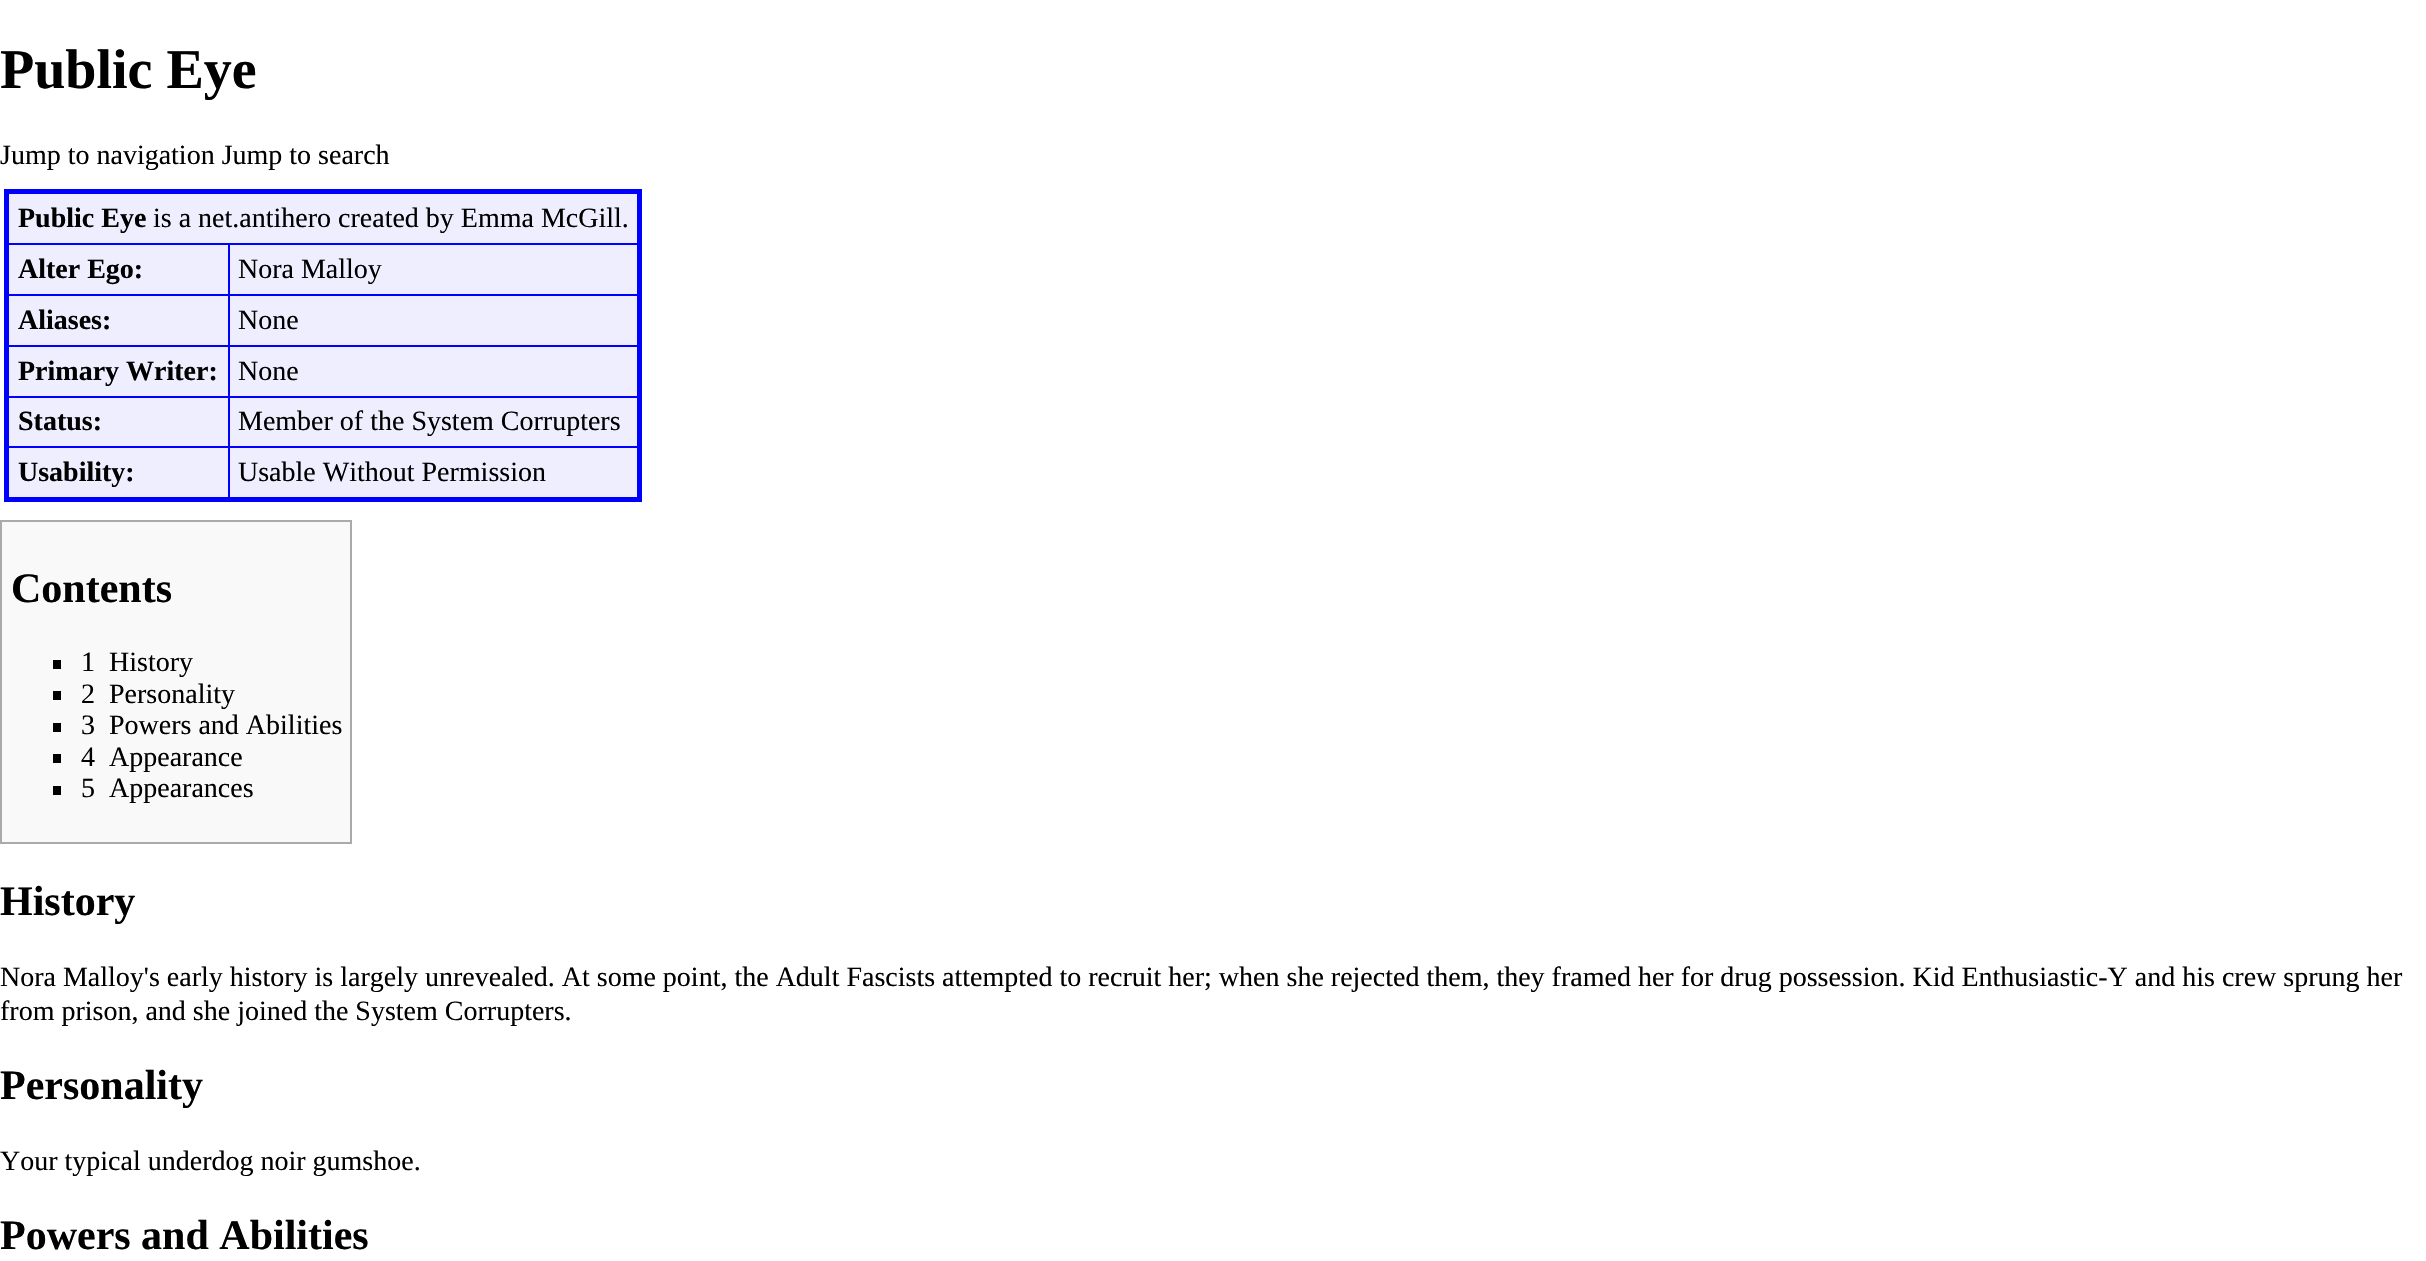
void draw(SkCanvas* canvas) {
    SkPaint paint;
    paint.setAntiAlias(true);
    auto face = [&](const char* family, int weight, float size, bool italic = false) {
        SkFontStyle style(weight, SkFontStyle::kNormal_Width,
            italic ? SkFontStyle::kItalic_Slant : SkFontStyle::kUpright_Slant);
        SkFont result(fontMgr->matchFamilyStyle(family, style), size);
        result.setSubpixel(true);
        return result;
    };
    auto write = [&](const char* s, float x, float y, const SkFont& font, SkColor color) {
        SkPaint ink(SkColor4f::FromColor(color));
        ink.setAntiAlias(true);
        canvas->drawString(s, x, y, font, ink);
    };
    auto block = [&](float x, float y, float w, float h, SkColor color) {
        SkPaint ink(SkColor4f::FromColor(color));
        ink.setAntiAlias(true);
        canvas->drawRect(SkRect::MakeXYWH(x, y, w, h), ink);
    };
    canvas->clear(SK_ColorWHITE);
    auto kFont1 = face("Liberation Serif", 700, 56);
    write("Public Eye", 0, 88, kFont1, SK_ColorBLACK);
    auto kFont2 = face("Liberation Serif", 400, 28);
    write("Jump to navigation Jump to search", 0, 164, kFont2, SK_ColorBLACK);
    block(9, 194, 628, 303, SkColorSetRGB(238, 238, 255));
    block(4, 189, 638, 5, SkColorSetRGB(0, 0, 255));
    block(228, 243, 413, 2, SkColorSetRGB(0, 0, 255));
    block(228, 294, 413, 2, SkColorSetRGB(0, 0, 255));
    block(228, 345, 413, 2, SkColorSetRGB(0, 0, 255));
    block(228, 396, 413, 2, SkColorSetRGB(0, 0, 255));
    block(228, 446, 413, 2, SkColorSetRGB(0, 0, 255));
    block(637, 189, 5, 313, SkColorSetRGB(0, 0, 255));
    block(228, 446, 2, 55, SkColorSetRGB(0, 0, 255));
    block(4, 497, 638, 5, SkColorSetRGB(0, 0, 255));
    block(5, 446, 224, 2, SkColorSetRGB(0, 0, 255));
    block(228, 396, 2, 52, SkColorSetRGB(0, 0, 255));
    block(5, 396, 224, 2, SkColorSetRGB(0, 0, 255));
    block(228, 345, 2, 52, SkColorSetRGB(0, 0, 255));
    block(5, 345, 224, 2, SkColorSetRGB(0, 0, 255));
    block(228, 294, 2, 53, SkColorSetRGB(0, 0, 255));
    block(5, 294, 224, 2, SkColorSetRGB(0, 0, 255));
    block(228, 243, 2, 53, SkColorSetRGB(0, 0, 255));
    block(5, 243, 224, 2, SkColorSetRGB(0, 0, 255));
    block(4, 189, 5, 313, SkColorSetRGB(0, 0, 255));
    auto kFont3 = face("Liberation Serif", 700, 28);
    write("Public Eye", 18, 227, kFont3, SK_ColorBLACK);
    write("is a net.antihero created by Emma McGill.", 153, 227, kFont2, SK_ColorBLACK);
    write("Alter Ego:", 18, 278, kFont3, SK_ColorBLACK);
    write("Nora Malloy", 238, 278, kFont2, SK_ColorBLACK);
    write("Aliases:", 18, 329, kFont3, SK_ColorBLACK);
    write("None", 238, 329, kFont2, SK_ColorBLACK);
    write("Primary Writer:", 18, 380, kFont3, SK_ColorBLACK);
    write("None", 238, 380, kFont2, SK_ColorBLACK);
    write("Status:", 18, 430, kFont3, SK_ColorBLACK);
    write("Member of the System Corrupters", 238, 430, kFont2, SK_ColorBLACK);
    write("Usability:", 18, 481, kFont3, SK_ColorBLACK);
    write("Usable Without Permission", 238, 481, kFont2, SK_ColorBLACK);
    paint.setColor(SkColorSetRGB(249, 249, 249));
    canvas->drawRect(SkRect::MakeXYWH(1, 521, 350, 322), paint);
    paint.setStyle(SkPaint::kStroke_Style);
    paint.setStrokeWidth(2);
    paint.setColor(SkColorSetRGB(170, 170, 170));
    canvas->drawRect(SkRect::MakeXYWH(1, 521, 350, 322), paint);
    auto kFont4 = face("Liberation Serif", 700, 42);
    write("Contents", 11, 602, kFont4, SK_ColorBLACK);
    block(53, 660, 8, 9, SK_ColorBLACK);
    write("1", 81, 671, kFont2, SK_ColorBLACK);
    write("History", 109, 671, kFont2, SK_ColorBLACK);
    block(53, 691, 8, 9, SK_ColorBLACK);
    write("2", 81, 703, kFont2, SK_ColorBLACK);
    write("Personality", 109, 703, kFont2, SK_ColorBLACK);
    block(53, 723, 8, 9, SK_ColorBLACK);
    write("3", 81, 734, kFont2, SK_ColorBLACK);
    write("Powers and Abilities", 109, 734, kFont2, SK_ColorBLACK);
    block(53, 754, 8, 9, SK_ColorBLACK);
    write("4", 81, 766, kFont2, SK_ColorBLACK);
    write("Appearance", 109, 766, kFont2, SK_ColorBLACK);
    block(53, 786, 8, 9, SK_ColorBLACK);
    write("5", 81, 797, kFont2, SK_ColorBLACK);
    write("Appearances", 109, 797, kFont2, SK_ColorBLACK);
    write("History", 0, 915, kFont4, SK_ColorBLACK);
    write("Nora Malloy's early history is largely unrevealed. At some point, the Adult Fascists attempted to recruit her; when she rejected them, they framed her for drug possession. Kid Enthusiastic-Y and his crew sprung her", 0, 986, kFont2, SK_ColorBLACK);
    write("from prison, and she joined the System Corrupters.", 0, 1020, kFont2, SK_ColorBLACK);
    write("Personality", 0, 1099, kFont4, SK_ColorBLACK);
    write("Your typical underdog noir gumshoe.", 0, 1170, kFont2, SK_ColorBLACK);
    write("Powers and Abilities", 0, 1249, kFont4, SK_ColorBLACK);
}
